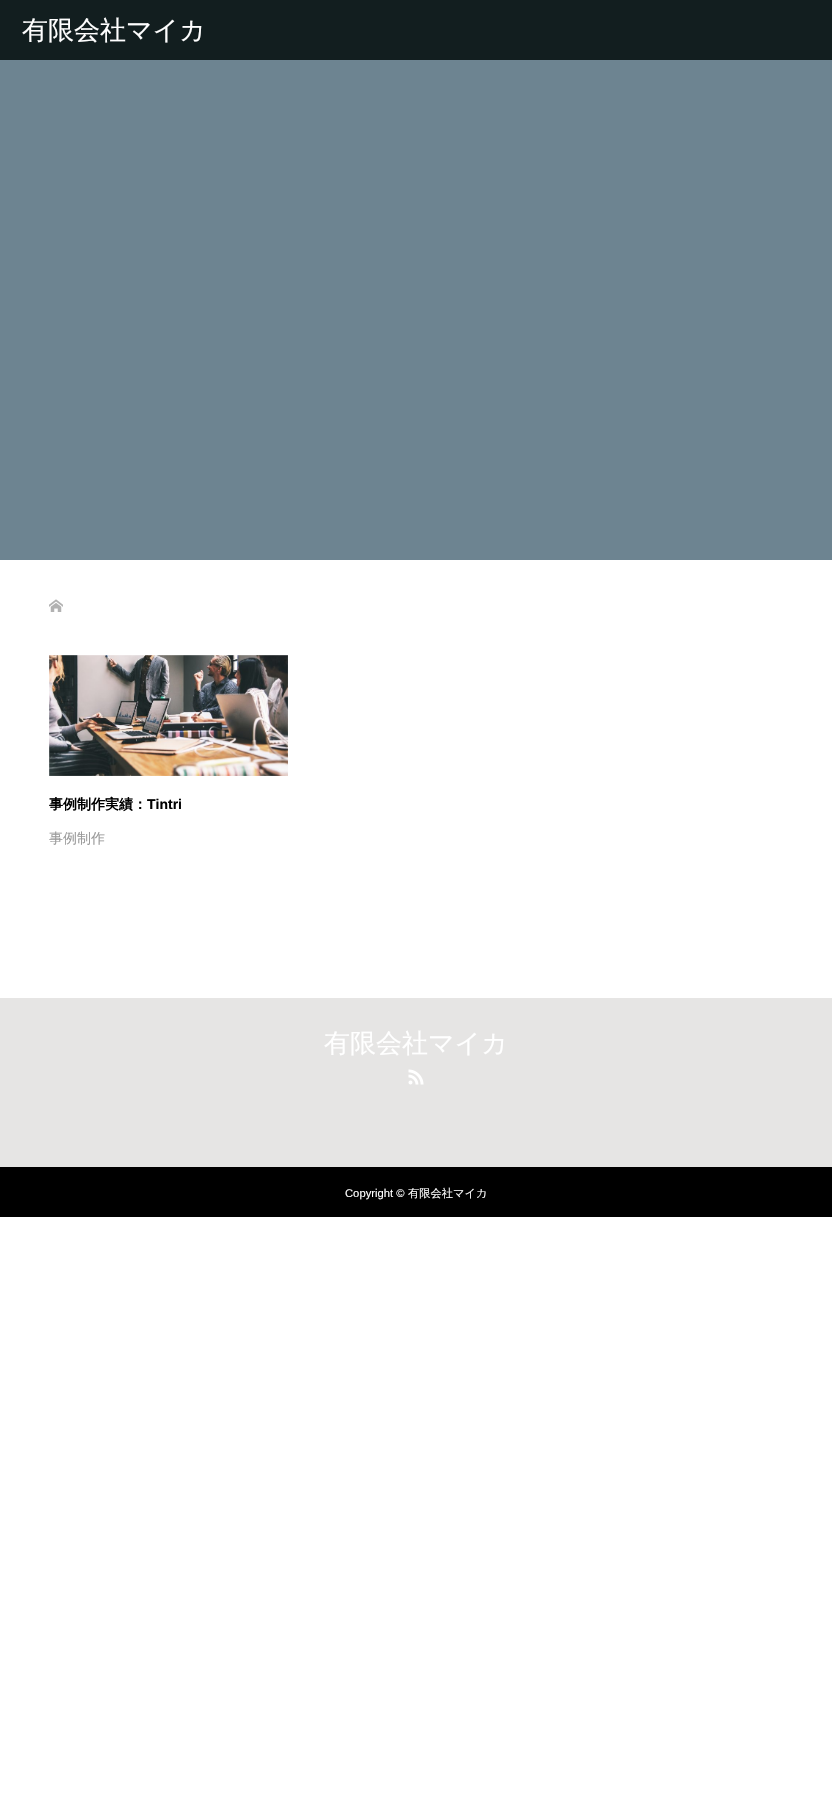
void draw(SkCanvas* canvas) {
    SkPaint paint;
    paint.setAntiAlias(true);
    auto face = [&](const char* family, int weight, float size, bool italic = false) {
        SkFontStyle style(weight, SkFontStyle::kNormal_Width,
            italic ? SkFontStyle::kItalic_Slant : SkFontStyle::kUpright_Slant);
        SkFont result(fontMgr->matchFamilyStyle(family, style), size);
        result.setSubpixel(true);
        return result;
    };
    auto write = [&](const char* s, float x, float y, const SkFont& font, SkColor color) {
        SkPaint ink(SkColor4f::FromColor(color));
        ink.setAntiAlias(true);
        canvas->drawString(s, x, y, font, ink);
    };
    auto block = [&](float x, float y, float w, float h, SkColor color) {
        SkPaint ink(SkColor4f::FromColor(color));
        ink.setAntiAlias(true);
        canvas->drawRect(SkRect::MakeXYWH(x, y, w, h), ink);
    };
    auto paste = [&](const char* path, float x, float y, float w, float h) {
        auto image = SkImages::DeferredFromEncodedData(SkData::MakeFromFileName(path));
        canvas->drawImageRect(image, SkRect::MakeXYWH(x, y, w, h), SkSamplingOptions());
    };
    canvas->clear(SK_ColorWHITE);
    block(0, 0, 832, 60, SkColorSetRGB(18, 30, 31));
    auto kFont1 = face("WenQuanYi Zen Hei", 500, 26);
    write("有限会社マイカ", 22, 39, kFont1, SK_ColorWHITE);
    block(0, 60, 832, 500, SkColorSetRGB(109, 132, 145));
    paste("pic1.png", 49, 599, 14, 13);
    paste("pic2.png", 49, 655, 239, 121);
    auto kFont2 = face("WenQuanYi Zen Hei", 700, 14);
    write("事例制作実績：", 49, 809, kFont2, SK_ColorBLACK);
    auto kFont3 = face("Liberation Sans", 700, 14);
    write("Tintri", 147, 809, kFont3, SK_ColorBLACK);
    auto kFont4 = face("WenQuanYi Zen Hei", 500, 14);
    write("事例制作", 49, 843, kFont4, SkColorSetRGB(153, 153, 153));
    block(0, 998, 832, 169, SkColorSetRGB(230, 229, 228));
    write("有限会社マイカ", 324, 1052, kFont1, SK_ColorWHITE);
    paste("pic3.png", 408, 1069, 16, 16);
    block(0, 1167, 832, 50, SK_ColorBLACK);
    auto kFont5 = face("Liberation Sans", 400, 11.25f);
    write("Copyright ©", 345, 1197, kFont5, SK_ColorWHITE);
    auto kFont6 = face("WenQuanYi Zen Hei", 500, 11.25f);
    write("有限会社マイカ", 408, 1197, kFont6, SK_ColorWHITE);
}
